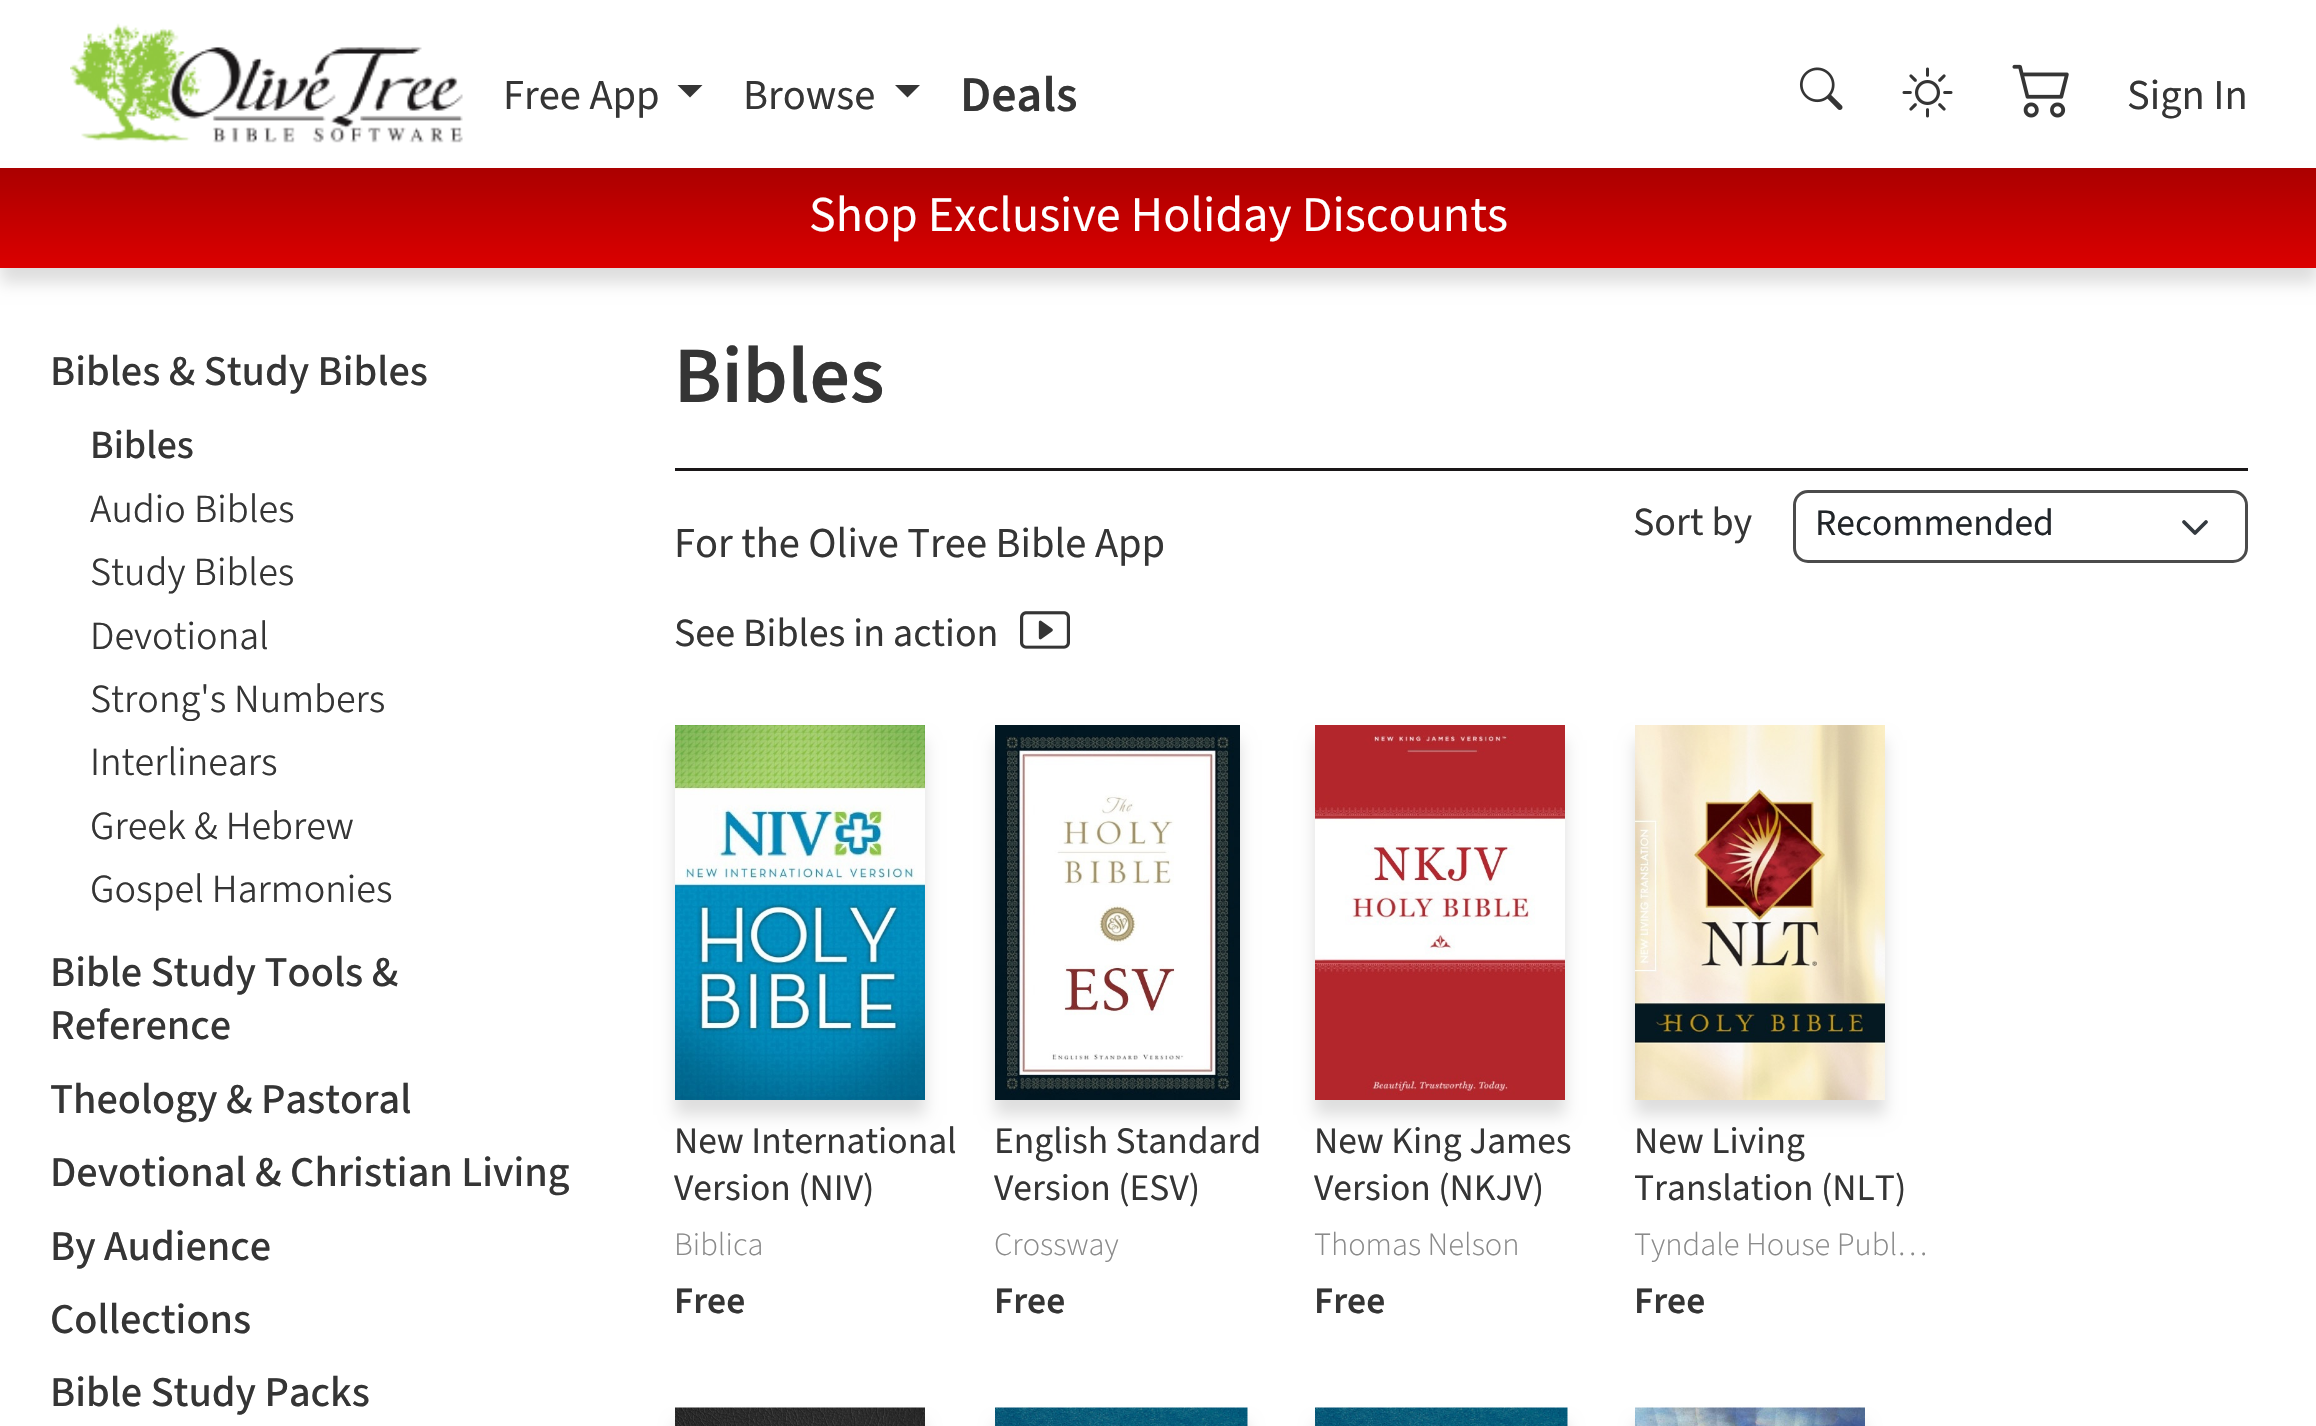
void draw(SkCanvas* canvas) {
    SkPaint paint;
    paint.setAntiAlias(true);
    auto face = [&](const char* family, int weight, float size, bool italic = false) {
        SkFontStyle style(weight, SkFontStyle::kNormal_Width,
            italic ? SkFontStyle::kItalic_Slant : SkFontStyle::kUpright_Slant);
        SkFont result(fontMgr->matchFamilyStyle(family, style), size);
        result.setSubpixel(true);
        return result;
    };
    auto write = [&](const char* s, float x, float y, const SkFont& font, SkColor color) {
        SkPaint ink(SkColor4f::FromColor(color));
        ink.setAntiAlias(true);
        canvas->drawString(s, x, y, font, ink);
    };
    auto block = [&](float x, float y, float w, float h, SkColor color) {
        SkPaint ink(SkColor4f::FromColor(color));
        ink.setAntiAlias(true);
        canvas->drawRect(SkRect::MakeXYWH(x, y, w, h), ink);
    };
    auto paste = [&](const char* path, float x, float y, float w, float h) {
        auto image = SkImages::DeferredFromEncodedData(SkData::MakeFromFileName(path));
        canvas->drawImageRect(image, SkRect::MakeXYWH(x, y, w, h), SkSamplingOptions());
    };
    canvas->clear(SK_ColorWHITE);
    paste("pic1.png", 70, 23, 393, 120);
    auto kFont1 = face("Source Sans 3", 400, 42.5f);
    write("Free App", 503, 109, kFont1, SkColorSetRGB(53, 53, 53));
    paint.setColor(SkColorSetRGB(53, 53, 53));
    canvas->drawPath(SkPathBuilder().moveTo(677.5f, 85).lineTo(702.5f, 85).lineTo(690, 97.5f).close().detach(), paint);
    write("Browse", 743, 109, kFont1, SkColorSetRGB(53, 53, 53));
    canvas->drawPath(SkPathBuilder().moveTo(895, 85).lineTo(920, 85).lineTo(907.5f, 97.5f).close().detach(), paint);
    auto kFont2 = face("Source Sans 3", 600, 50);
    write("Deals", 960, 111, kFont2, SkColorSetRGB(53, 53, 53));
    paste("pic2.png", 1799, 67, 44, 43);
    paste("pic3.png", 1902, 67, 51, 51);
    paste("pic4.png", 2012, 64, 57, 54);
    write("Sign In", 2127, 109, kFont1, SkColorSetRGB(53, 53, 53));
    paint.setColor(SkColorSetARGB(33, 0, 0, 0));
    paint.setMaskFilter(SkMaskFilter::MakeBlur(kNormal_SkBlurStyle, 7.5f));
    canvas->drawRect(SkRect::MakeXYWH(0, 183, 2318, 100), paint);
    paint.setMaskFilter(nullptr);
    {
        const SkColor colors[] = {SkColorSetRGB(170, 0, 0), SkColorSetRGB(219, 0, 0)};
        const float stops[] = {0, 1};
        const SkPoint ends[] = {{1159, 167}, {1159, 268}};
        paint.setShader(SkGradientShader::MakeLinear(ends, colors, stops, 2, SkTileMode::kClamp));
        paint.setAlpha(255);
    }
    canvas->drawRect(SkRect::MakeXYWH(0, 168, 2316, 100), paint);
    auto kFont3 = face("Source Sans 3", 400, 50);
    write("Shop Exclusive Holiday Discounts", 809, 231, kFont3, SK_ColorWHITE);
    auto kFont4 = face("Source Sans 3", 500, 42.5f);
    write("Bibles & Study Bibles", 50, 385, kFont4, SkColorSetRGB(53, 53, 53));
    auto kFont5 = face("Source Sans 3", 500, 40);
    write("Bibles", 90, 458, kFont5, SkColorSetRGB(53, 53, 53));
    auto kFont6 = face("Source Sans 3", 300, 40);
    write("Audio Bibles", 90, 522, kFont6, SkColorSetRGB(53, 53, 53));
    write("Study Bibles", 90, 585, kFont6, SkColorSetRGB(53, 53, 53));
    write("Devotional", 90, 649, kFont6, SkColorSetRGB(53, 53, 53));
    write("Strong's Numbers", 90, 712, kFont6, SkColorSetRGB(53, 53, 53));
    write("Interlinears", 90, 775, kFont6, SkColorSetRGB(53, 53, 53));
    write("Greek & Hebrew", 90, 839, kFont6, SkColorSetRGB(53, 53, 53));
    write("Gospel Harmonies", 90, 902, kFont6, SkColorSetRGB(53, 53, 53));
    write("Bible Study Tools &", 50, 986, kFont4, SkColorSetRGB(53, 53, 53));
    write("Reference", 50, 1039, kFont4, SkColorSetRGB(53, 53, 53));
    write("Theology & Pastoral", 50, 1113, kFont4, SkColorSetRGB(53, 53, 53));
    write("Devotional & Christian Living", 50, 1186, kFont4, SkColorSetRGB(53, 53, 53));
    write("By Audience", 50, 1260, kFont4, SkColorSetRGB(53, 53, 53));
    write("Collections", 50, 1333, kFont4, SkColorSetRGB(53, 53, 53));
    write("Bible Study Packs", 50, 1406, kFont4, SkColorSetRGB(53, 53, 53));
    auto kFont7 = face("Source Sans 3", 600, 80);
    write("Bibles", 674, 402, kFont7, SkColorSetRGB(53, 53, 53));
    block(675, 468, 1573, 3, SkColorSetRGB(26, 23, 24));
    write("For the Olive Tree Bible App", 674, 557, kFont1, SkColorSetRGB(53, 53, 53));
    auto kFont8 = face("Source Sans 3", 400, 40);
    write("Sort by", 1633, 535, kFont8, SkColorSetRGB(53, 53, 53));
    paint.setStyle(SkPaint::kStroke_Style);
    paint.setStrokeWidth(3.8f);
    paint.setStrokeCap(SkPaint::kRound_Cap);
    paint.setStrokeJoin(SkPaint::kRound_Join);
    paint.setShader(nullptr);
    paint.setColor(SkColorSetRGB(52, 58, 64));
    canvas->drawPath(SkPathBuilder().moveTo(2184, 522).lineTo(2195, 533).lineTo(2206, 522).detach(), paint);
    paint.setStrokeWidth(3);
    paint.setStrokeCap(SkPaint::kButt_Cap);
    paint.setStrokeJoin(SkPaint::kMiter_Join);
    paint.setColor(SkColorSetRGB(75, 75, 75));
    canvas->drawRoundRect(SkRect::MakeXYWH(1794.5f, 491.5f, 452, 70), 13.5f, 13.5f, paint);
    auto kFont9 = face("Source Sans 3", 400, 37.5f);
    write("Recommended", 1815, 535, kFont9, SkColorSetRGB(33, 37, 41));
    write("See Bibles in action", 674, 646, kFont8, SkColorSetRGB(53, 53, 53));
    paste("pic5.png", 1020, 611, 50, 38);
    paint.setStyle(SkPaint::kFill_Style);
    paint.setColor(SkColorSetARGB(33, 0, 0, 0));
    paint.setMaskFilter(SkMaskFilter::MakeBlur(kNormal_SkBlurStyle, 7.5f));
    canvas->drawRect(SkRect::MakeXYWH(675, 740, 250, 375), paint);
    paint.setMaskFilter(nullptr);
    paste("pic6.png", 675, 725, 250, 375);
    write("New International", 674, 1153, kFont9, SkColorSetRGB(53, 53, 53));
    write("Version (NIV)", 674, 1200, kFont9, SkColorSetRGB(53, 53, 53));
    auto kFont10 = face("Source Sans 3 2", 300, 32.5f);
    write("Biblica", 674, 1255, kFont10, SkColorSetRGB(138, 138, 138));
    auto kFont11 = face("Source Sans 3", 600, 37.5f);
    write("Free", 674, 1313, kFont11, SkColorSetRGB(53, 53, 53));
    paint.setMaskFilter(SkMaskFilter::MakeBlur(kNormal_SkBlurStyle, 7.5f));
    canvas->drawRect(SkRect::MakeXYWH(995, 740, 245, 375), paint);
    paint.setMaskFilter(nullptr);
    paste("pic7.png", 995, 725, 245, 375);
    write("English Standard", 994, 1153, kFont9, SkColorSetRGB(53, 53, 53));
    write("Version (ESV)", 994, 1200, kFont9, SkColorSetRGB(53, 53, 53));
    write("Crossway", 994, 1255, kFont10, SkColorSetRGB(138, 138, 138));
    write("Free", 994, 1313, kFont11, SkColorSetRGB(53, 53, 53));
    paint.setMaskFilter(SkMaskFilter::MakeBlur(kNormal_SkBlurStyle, 7.5f));
    canvas->drawRect(SkRect::MakeXYWH(1315, 740, 250, 375), paint);
    paint.setMaskFilter(nullptr);
    paste("pic8.png", 1315, 725, 250, 375);
    write("New King James", 1314, 1153, kFont9, SkColorSetRGB(53, 53, 53));
    write("Version (NKJV)", 1314, 1200, kFont9, SkColorSetRGB(53, 53, 53));
    write("Thomas Nelson", 1314, 1255, kFont10, SkColorSetRGB(138, 138, 138));
    write("Free", 1314, 1313, kFont11, SkColorSetRGB(53, 53, 53));
    paint.setMaskFilter(SkMaskFilter::MakeBlur(kNormal_SkBlurStyle, 7.5f));
    canvas->drawRect(SkRect::MakeXYWH(1635, 740, 250, 375), paint);
    paint.setMaskFilter(nullptr);
    paste("pic9.png", 1635, 725, 250, 375);
    write("New Living", 1634, 1153, kFont9, SkColorSetRGB(53, 53, 53));
    write("Translation (NLT)", 1634, 1200, kFont9, SkColorSetRGB(53, 53, 53));
    write("Tyndale House Publ…", 1634, 1255, kFont10, SkColorSetRGB(138, 138, 138));
    write("Free", 1634, 1313, kFont11, SkColorSetRGB(53, 53, 53));
    paint.setMaskFilter(SkMaskFilter::MakeBlur(kNormal_SkBlurStyle, 7.5f));
    canvas->drawRect(SkRect::MakeXYWH(675, 1423, 250, 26), paint);
    paint.setMaskFilter(nullptr);
    paste("pic10.png", 675, 1407, 250, 19);
    paint.setMaskFilter(SkMaskFilter::MakeBlur(kNormal_SkBlurStyle, 7.5f));
    canvas->drawRect(SkRect::MakeXYWH(995, 1423, 253, 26), paint);
    paint.setMaskFilter(nullptr);
    paste("pic11.png", 995, 1407, 253, 19);
    paint.setMaskFilter(SkMaskFilter::MakeBlur(kNormal_SkBlurStyle, 7.5f));
    canvas->drawRect(SkRect::MakeXYWH(1315, 1423, 253, 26), paint);
    paint.setMaskFilter(nullptr);
    paste("pic12.png", 1315, 1407, 253, 19);
    paint.setMaskFilter(SkMaskFilter::MakeBlur(kNormal_SkBlurStyle, 7.5f));
    canvas->drawRect(SkRect::MakeXYWH(1635, 1423, 230, 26), paint);
    paint.setMaskFilter(nullptr);
    paste("pic13.png", 1635, 1407, 230, 19);
}
